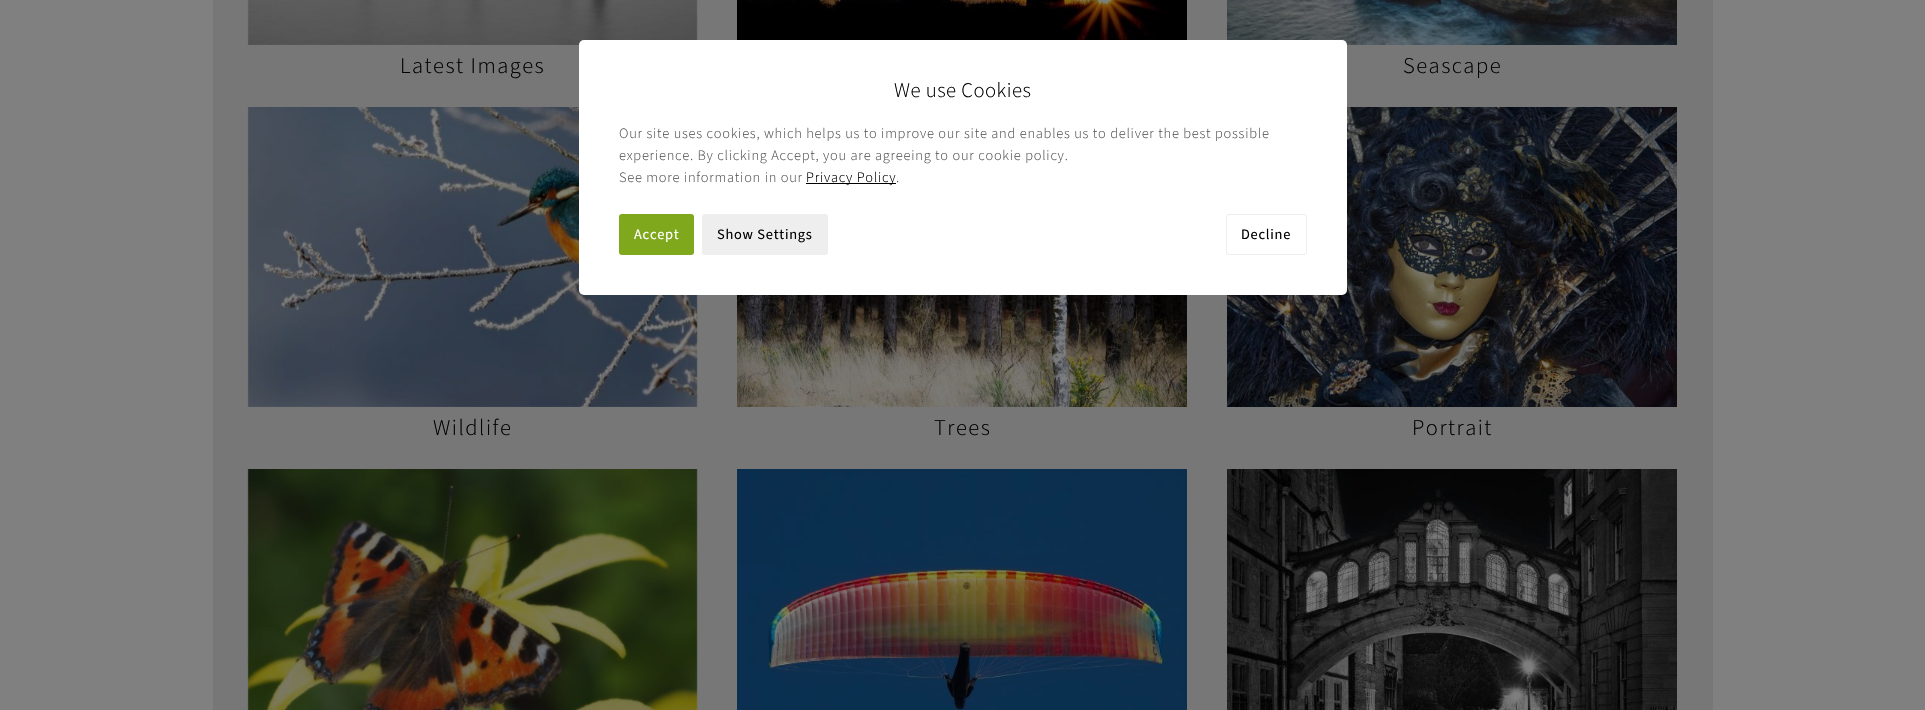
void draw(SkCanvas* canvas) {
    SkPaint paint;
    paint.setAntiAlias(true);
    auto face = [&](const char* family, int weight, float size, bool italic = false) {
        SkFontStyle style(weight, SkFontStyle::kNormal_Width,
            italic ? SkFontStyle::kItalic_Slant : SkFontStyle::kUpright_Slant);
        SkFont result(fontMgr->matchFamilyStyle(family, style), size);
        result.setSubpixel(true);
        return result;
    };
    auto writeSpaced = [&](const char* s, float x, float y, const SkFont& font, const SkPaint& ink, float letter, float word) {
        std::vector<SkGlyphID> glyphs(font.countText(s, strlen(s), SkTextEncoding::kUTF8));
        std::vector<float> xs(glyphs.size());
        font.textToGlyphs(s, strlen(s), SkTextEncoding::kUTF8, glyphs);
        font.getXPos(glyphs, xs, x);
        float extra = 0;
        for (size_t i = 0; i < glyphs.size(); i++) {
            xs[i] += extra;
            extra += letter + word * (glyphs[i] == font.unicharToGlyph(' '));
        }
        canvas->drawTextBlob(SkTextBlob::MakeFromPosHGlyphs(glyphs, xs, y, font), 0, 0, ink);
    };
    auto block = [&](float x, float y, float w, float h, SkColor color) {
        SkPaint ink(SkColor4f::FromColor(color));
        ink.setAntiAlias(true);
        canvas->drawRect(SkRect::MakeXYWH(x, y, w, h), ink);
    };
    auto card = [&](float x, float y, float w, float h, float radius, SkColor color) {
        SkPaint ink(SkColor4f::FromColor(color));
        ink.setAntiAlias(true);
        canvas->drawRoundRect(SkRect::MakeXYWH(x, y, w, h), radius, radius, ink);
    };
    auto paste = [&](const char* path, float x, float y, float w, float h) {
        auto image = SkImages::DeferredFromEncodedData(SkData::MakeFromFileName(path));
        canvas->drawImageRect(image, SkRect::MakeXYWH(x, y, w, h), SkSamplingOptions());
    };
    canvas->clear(SkColorSetRGB(128, 128, 128));
    block(213, 0, 1500, 710, SkColorSetRGB(119, 119, 119));
    paste("pic1.png", 737, 0, 450, 40);
    paste("pic2.png", 247, 0, 451, 45);
    auto kFont1 = face("Source Sans 3", 300, 22.5f);
    paint.setColor(SK_ColorBLACK);
    writeSpaced("Latest Images", 400, 73, kFont1, paint, 1.5f, 0);
    paste("pic3.png", 1227, 0, 450, 45);
    writeSpaced("Seascape", 1403, 73, kFont1, paint, 1.5f, 0);
    paste("pic4.png", 247, 107, 451, 300);
    writeSpaced("Wildlife", 433, 435, kFont1, paint, 1.5f, 0);
    paste("pic5.png", 737, 295, 450, 112);
    writeSpaced("Trees", 934, 435, kFont1, paint, 1.5f, 0);
    paste("pic6.png", 1227, 107, 450, 300);
    writeSpaced("Portrait", 1412, 435, kFont1, paint, 1.5f, 0);
    paste("pic7.png", 247, 469, 451, 241);
    paste("pic8.png", 737, 469, 450, 241);
    paste("pic9.png", 1227, 469, 450, 241);
    card(579, 40, 768, 255, 5, SK_ColorWHITE);
    auto kFont2 = face("Source Sans 3", 300, 20.75f);
    writeSpaced("We use Cookies", 894, 97, kFont2, paint, 0.5f, 0);
    auto kFont3 = face("Source Sans 3", 300, 14.4f);
    paint.setColor(SkColorSetRGB(85, 85, 85));
    writeSpaced("Our site uses cookies, which helps us to improve our site and enables us to deliver the best possible", 619, 138, kFont3, paint, 0.75f, 0);
    writeSpaced("experience. By clicking Accept, you are agreeing to our cookie policy.", 619, 160, kFont3, paint, 0.75f, 0);
    writeSpaced("See more information in our", 619, 182, kFont3, paint, 0.75f, 0);
    block(806, 183, 90, 1, SK_ColorBLACK);
    paint.setColor(SK_ColorBLACK);
    writeSpaced("Privacy Policy", 806, 182, kFont3, paint, 0.75f, 0);
    paint.setColor(SkColorSetRGB(85, 85, 85));
    writeSpaced(".", 896, 182, kFont3, paint, 0.75f, 0);
    card(619, 214, 75, 41, 3, SkColorSetRGB(127, 168, 28));
    auto kFont4 = face("Source Sans 3", 400, 14.4f);
    paint.setColor(SK_ColorWHITE);
    writeSpaced("Accept", 634, 239, kFont4, paint, 0.75f, 0);
    card(702, 214, 126, 41, 3, SkColorSetRGB(238, 238, 238));
    paint.setColor(SK_ColorBLACK);
    writeSpaced("Show Settings", 717, 239, kFont4, paint, 0.75f, 0);
    paint.setStyle(SkPaint::kStroke_Style);
    paint.setStrokeWidth(1);
    paint.setColor(SkColorSetRGB(238, 238, 238));
    canvas->drawRoundRect(SkRect::MakeXYWH(1226.5f, 214.5f, 80, 40), 2.5f, 2.5f, paint);
    paint.setStyle(SkPaint::kFill_Style);
    paint.setColor(SK_ColorBLACK);
    writeSpaced("Decline", 1241, 239, kFont4, paint, 0.75f, 0);
}
